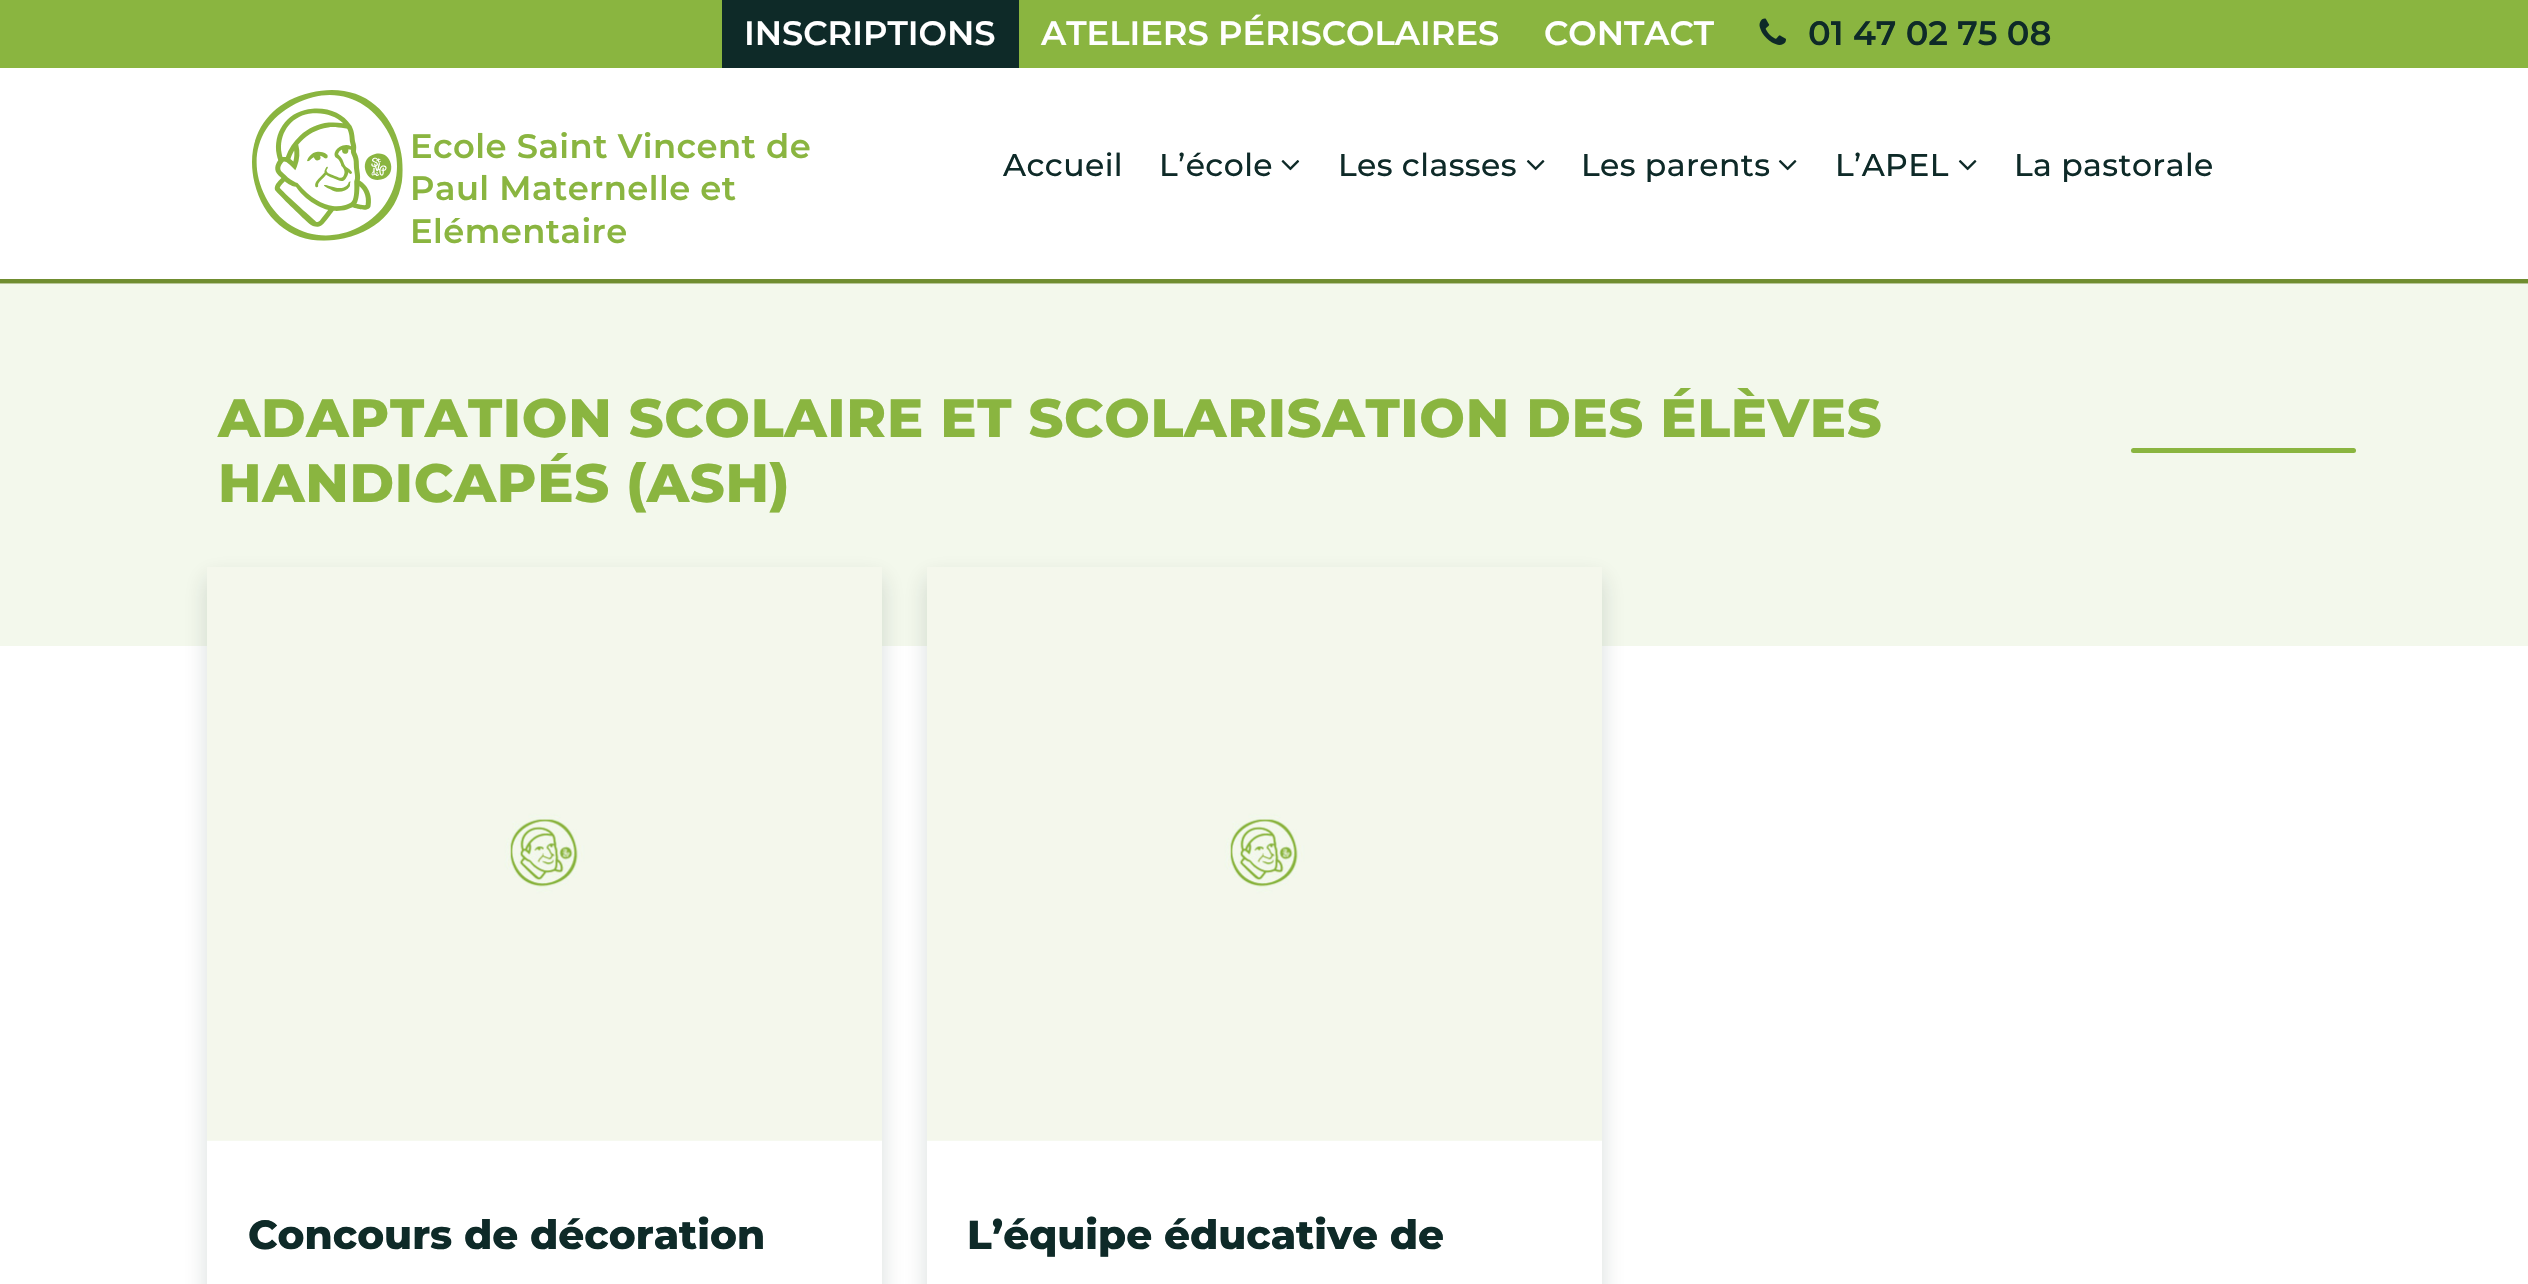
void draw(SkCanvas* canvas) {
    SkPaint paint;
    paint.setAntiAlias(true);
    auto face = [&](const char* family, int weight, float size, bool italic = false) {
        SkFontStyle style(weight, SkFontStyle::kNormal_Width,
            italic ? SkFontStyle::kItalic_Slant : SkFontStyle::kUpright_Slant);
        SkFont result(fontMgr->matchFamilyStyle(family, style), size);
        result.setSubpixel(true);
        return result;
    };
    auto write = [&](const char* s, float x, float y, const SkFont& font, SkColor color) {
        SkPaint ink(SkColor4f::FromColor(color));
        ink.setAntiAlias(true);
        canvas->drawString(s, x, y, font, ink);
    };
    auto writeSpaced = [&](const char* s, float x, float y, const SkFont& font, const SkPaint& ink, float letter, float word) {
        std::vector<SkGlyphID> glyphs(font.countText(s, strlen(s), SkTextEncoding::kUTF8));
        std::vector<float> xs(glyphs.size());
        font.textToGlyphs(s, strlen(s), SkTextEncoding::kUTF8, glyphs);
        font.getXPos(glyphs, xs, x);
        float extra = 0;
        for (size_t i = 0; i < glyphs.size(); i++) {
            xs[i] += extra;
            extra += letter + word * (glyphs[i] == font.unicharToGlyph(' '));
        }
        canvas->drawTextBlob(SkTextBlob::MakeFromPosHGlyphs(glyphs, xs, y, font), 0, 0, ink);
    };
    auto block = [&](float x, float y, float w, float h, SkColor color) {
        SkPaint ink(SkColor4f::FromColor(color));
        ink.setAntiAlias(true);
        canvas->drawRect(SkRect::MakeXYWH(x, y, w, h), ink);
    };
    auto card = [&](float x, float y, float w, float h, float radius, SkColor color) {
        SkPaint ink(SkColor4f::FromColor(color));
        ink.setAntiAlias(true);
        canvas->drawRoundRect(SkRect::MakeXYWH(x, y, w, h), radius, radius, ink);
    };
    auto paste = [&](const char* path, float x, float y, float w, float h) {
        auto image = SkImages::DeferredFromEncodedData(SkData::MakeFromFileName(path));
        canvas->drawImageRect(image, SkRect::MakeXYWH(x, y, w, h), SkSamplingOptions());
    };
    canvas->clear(SK_ColorWHITE);
    block(0, 0, 2528, 68, SkColorSetRGB(138, 181, 64));
    block(722, 0, 297, 68, SkColorSetRGB(14, 42, 40));
    auto kFont1 = face("Montserrat", 600, 33.75f);
    write("INSCRIPTIONS", 744, 45, kFont1, SK_ColorWHITE);
    write("ATELIERS PÉRISCOLAIRES", 1041, 45, kFont1, SK_ColorWHITE);
    write("CONTACT", 1544, 45, kFont1, SK_ColorWHITE);
    paste("pic1.png", 1759, 18, 27, 27);
    write("01 47 02 75 08", 1808, 45, kFont1, SkColorSetRGB(14, 42, 40));
    paste("pic2.png", 252, 90, 151, 151);
    paint.setColor(SkColorSetRGB(138, 181, 64));
    writeSpaced("Ecole Saint Vincent de", 410, 158, kFont1, paint, 0.45f, 0);
    writeSpaced("Paul Maternelle et", 410, 200, kFont1, paint, 0.45f, 0);
    writeSpaced("Elémentaire", 410, 243, kFont1, paint, 0.45f, 0);
    auto kFont2 = face("Montserrat", 500, 31.5f);
    paint.setColor(SkColorSetRGB(14, 42, 40));
    writeSpaced("Accueil", 1003, 176, kFont2, paint, 0.4f, 0);
    writeSpaced("L’école", 1159, 176, kFont2, paint, 0.4f, 0);
    paste("pic3.png", 1281, 160, 19, 11);
    writeSpaced("Les classes", 1338, 176, kFont2, paint, 0.4f, 0);
    paste("pic4.png", 1526, 160, 19, 11);
    writeSpaced("Les parents", 1581, 176, kFont2, paint, 0.4f, 0);
    paste("pic4.png", 1778, 160, 19, 11);
    writeSpaced("L’APEL", 1835, 176, kFont2, paint, 0.4f, 0);
    paste("pic4.png", 1958, 160, 19, 11);
    writeSpaced("La pastorale", 2014, 176, kFont2, paint, 0.4f, 0);
    block(0, 279, 2528, 5, SkColorSetRGB(112, 141, 48));
    paste("pic5.png", 0, 283, 2528, 1001);
    block(0, 284, 2528, 362, SkColorSetRGB(243, 248, 236));
    auto kFont3 = face("Montserrat", 800, 54);
    paint.setColor(SkColorSetRGB(138, 181, 64));
    writeSpaced("ADAPTATION SCOLAIRE ET SCOLARISATION DES ÉLÈVES", 218, 437, kFont3, paint, 0.65f, 0);
    card(2131, 448, 225, 5, 2.5f, SkColorSetRGB(138, 181, 64));
    writeSpaced("HANDICAPÉS (ASH)", 218, 502, kFont3, paint, 0.65f, 0);
    paint.setColor(SkColorSetARGB(41, 14, 42, 40));
    paint.setMaskFilter(SkMaskFilter::MakeBlur(kNormal_SkBlurStyle, 11));
    canvas->drawRect(SkRect::MakeXYWH(207, 578, 675, 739), paint);
    paint.setMaskFilter(nullptr);
    block(207, 1140, 675, 144, SK_ColorWHITE);
    paste("pic6.png", 207, 567, 675, 574);
    auto kFont4 = face("Montserrat", 800, 40.5f);
    write("Concours de décoration", 248, 1249, kFont4, SkColorSetRGB(14, 42, 40));
    paint.setMaskFilter(SkMaskFilter::MakeBlur(kNormal_SkBlurStyle, 11));
    canvas->drawRect(SkRect::MakeXYWH(927, 578, 675, 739), paint);
    paint.setMaskFilter(nullptr);
    block(927, 1140, 675, 144, SK_ColorWHITE);
    paste("pic6.png", 927, 567, 675, 574);
    write("L’équipe éducative de", 967, 1249, kFont4, SkColorSetRGB(14, 42, 40));
}
